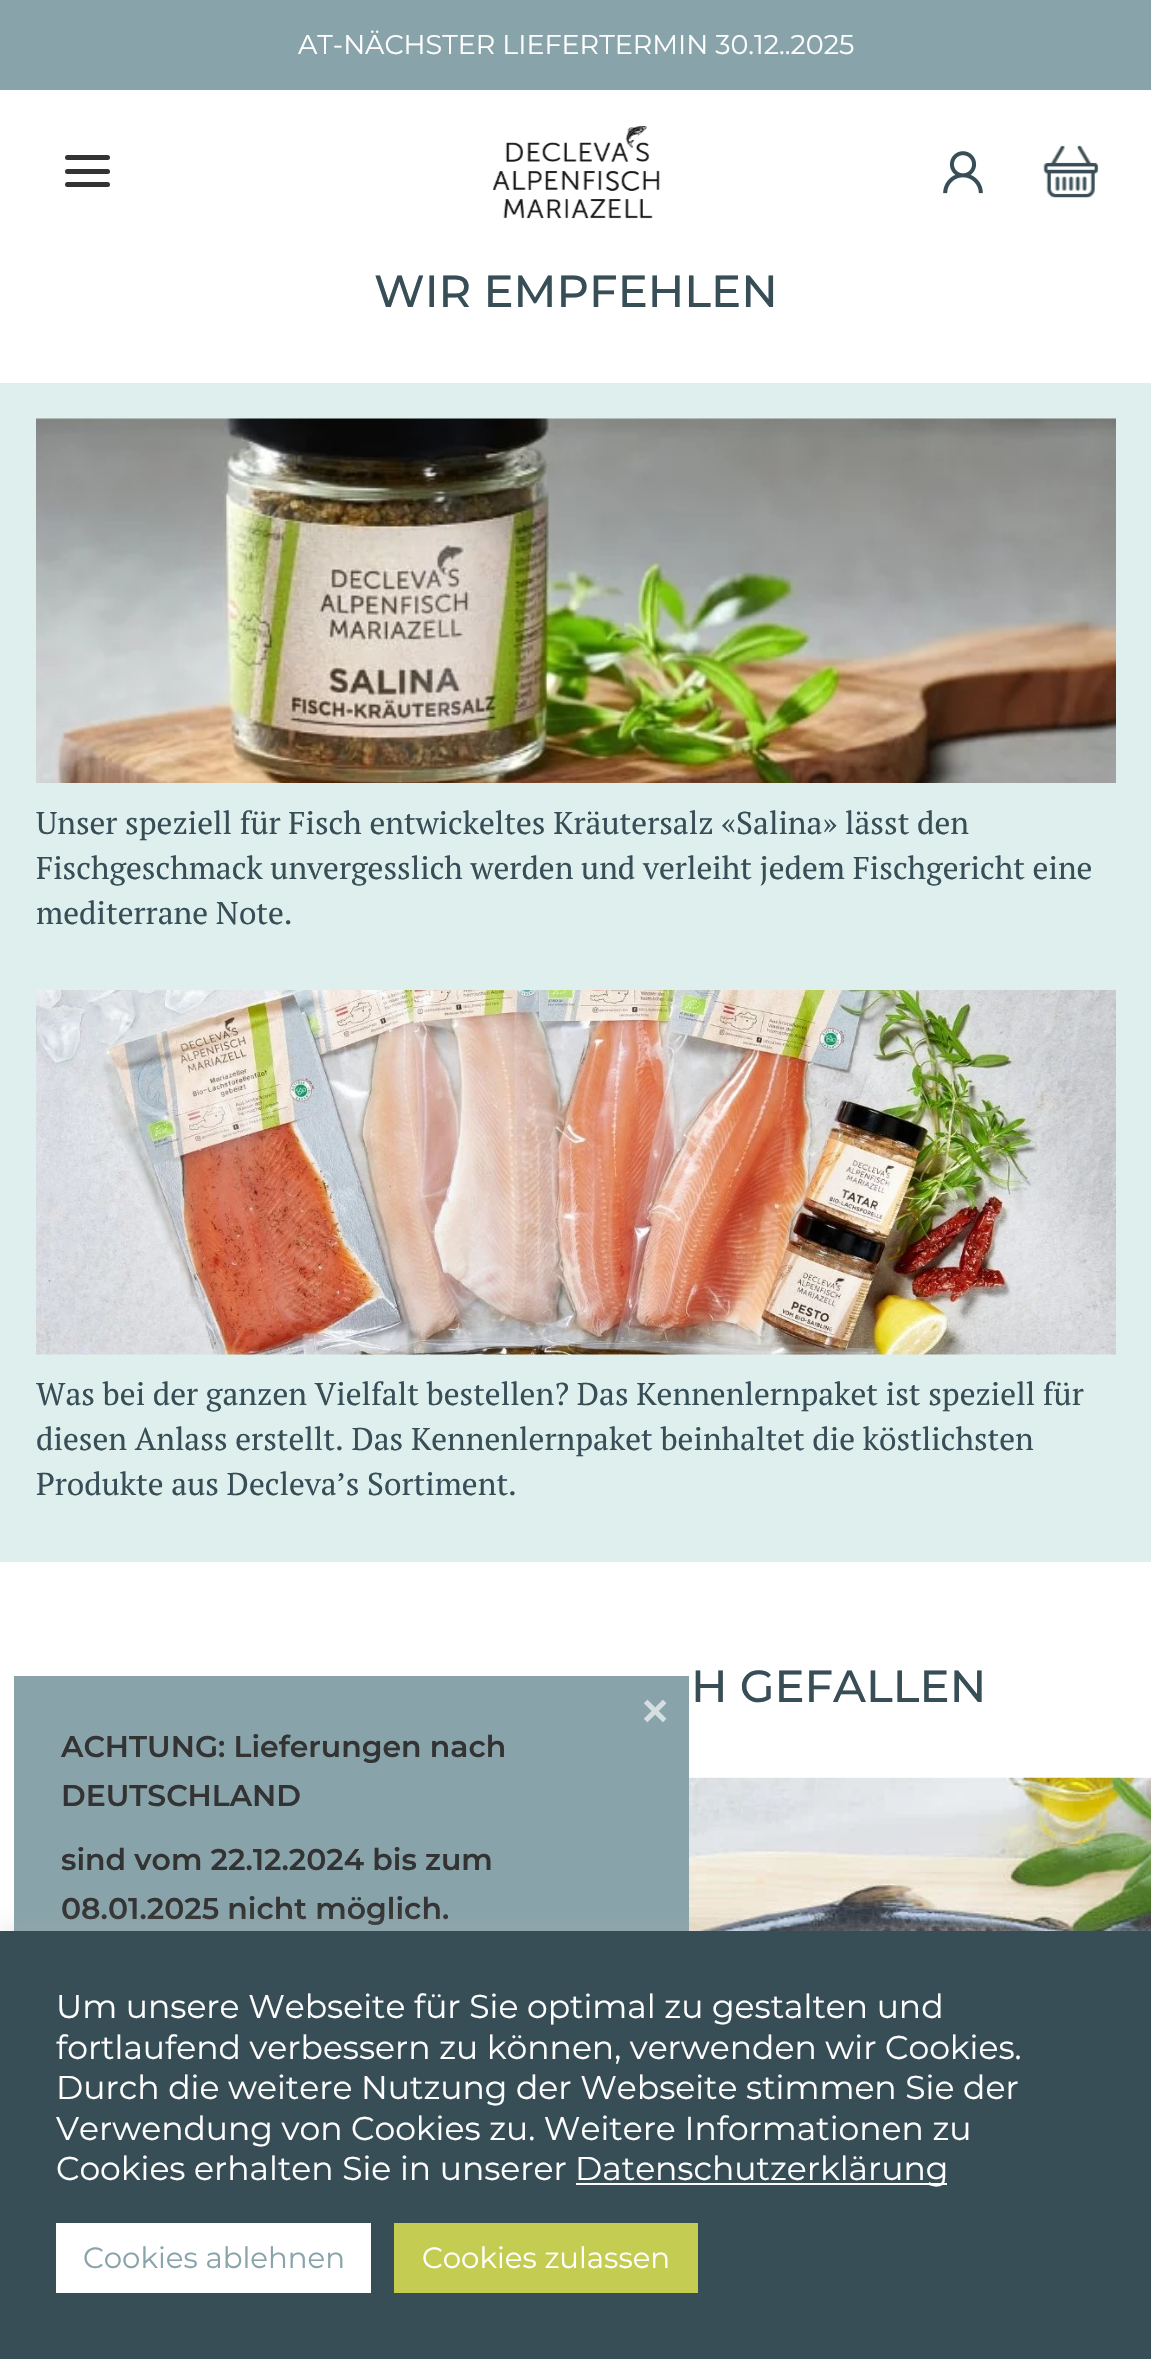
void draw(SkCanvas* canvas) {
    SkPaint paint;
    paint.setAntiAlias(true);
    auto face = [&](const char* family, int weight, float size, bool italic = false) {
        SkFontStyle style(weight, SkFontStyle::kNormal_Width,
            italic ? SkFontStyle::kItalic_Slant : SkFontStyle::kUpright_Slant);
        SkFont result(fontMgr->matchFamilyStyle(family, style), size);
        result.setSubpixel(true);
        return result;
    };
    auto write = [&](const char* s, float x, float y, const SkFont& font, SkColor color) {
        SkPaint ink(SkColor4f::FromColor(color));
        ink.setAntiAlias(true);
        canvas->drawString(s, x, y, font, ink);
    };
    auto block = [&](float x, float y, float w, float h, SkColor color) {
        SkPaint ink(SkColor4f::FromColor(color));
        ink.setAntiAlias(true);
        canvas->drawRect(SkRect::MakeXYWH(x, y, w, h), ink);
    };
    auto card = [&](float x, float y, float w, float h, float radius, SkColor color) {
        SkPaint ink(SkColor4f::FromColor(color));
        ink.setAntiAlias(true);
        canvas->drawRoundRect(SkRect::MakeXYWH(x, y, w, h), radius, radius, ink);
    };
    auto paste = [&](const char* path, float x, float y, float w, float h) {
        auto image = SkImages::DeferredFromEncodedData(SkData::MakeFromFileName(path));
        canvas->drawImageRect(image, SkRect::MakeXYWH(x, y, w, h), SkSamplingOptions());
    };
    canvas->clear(SK_ColorWHITE);
    block(0, 0, 1151, 90, SkColorSetRGB(136, 163, 170));
    auto kFont1 = face("Montserrat", 400, 27);
    write("AT-NÄCHSTER LIEFERTERMIN 30.12..2025", 298, 54, kFont1, SK_ColorWHITE);
    card(65, 155, 45, 5, 2.5f, SkColorSetRGB(51, 51, 51));
    card(65, 169, 45, 5, 2.5f, SkColorSetRGB(51, 51, 51));
    card(65, 182, 45, 5, 2.5f, SkColorSetRGB(51, 51, 51));
    paste("pic1.png", 493, 126, 167, 93);
    paste("pic2.png", 943, 151, 40, 43);
    paste("pic3.png", 1043, 145, 56, 53);
    auto kFont2 = face("Montserrat", 500, 45);
    write("WIR EMPFEHLEN", 374, 307, kFont2, SkColorSetRGB(56, 78, 87));
    block(0, 383, 1151, 1179, SkColorSetRGB(222, 239, 237));
    paste("pic4.png", 36, 418, 1080, 365);
    auto kFont3 = face("PT Serif", 400, 31.5f);
    write("Unser speziell für Fisch entwickeltes Kräutersalz «Salina» lässt den", 36, 834, kFont3, SkColorSetRGB(56, 78, 87));
    write("Fischgeschmack unvergesslich werden und verleiht jedem Fischgericht eine", 36, 879, kFont3, SkColorSetRGB(56, 78, 87));
    write("mediterrane Note.", 36, 924, kFont3, SkColorSetRGB(56, 78, 87));
    paste("pic5.png", 36, 990, 1080, 365);
    write("Was bei der ganzen Vielfalt bestellen? Das Kennenlernpaket ist speziell für", 36, 1405, kFont3, SkColorSetRGB(56, 78, 87));
    write("diesen Anlass erstellt. Das Kennenlernpaket beinhaltet die köstlichsten", 36, 1450, kFont3, SkColorSetRGB(56, 78, 87));
    write("Produkte aus Decleva’s Sortiment.", 36, 1495, kFont3, SkColorSetRGB(56, 78, 87));
    write("H GEFALLEN", 691, 1702, kFont2, SkColorSetRGB(56, 78, 87));
    paste("pic6.png", 689, 1777, 462, 154);
    block(14, 1676, 675, 255, SkColorSetRGB(136, 163, 170));
    auto kFont4 = face("Liberation Sans", 700, 45);
    write("×", 642, 1726, kFont4, SkColorSetRGB(213, 223, 225));
    auto kFont5 = face("Montserrat", 600, 29.9f);
    write("ACHTUNG: Lieferungen nach", 61, 1757, kFont5, SkColorSetRGB(51, 51, 51));
    write("DEUTSCHLAND", 61, 1806, kFont5, SkColorSetRGB(51, 51, 51));
    write("sind vom 22.12.2024 bis zum", 61, 1870, kFont5, SkColorSetRGB(51, 51, 51));
    write("08.01.2025 nicht möglich.", 61, 1919, kFont5, SkColorSetRGB(51, 51, 51));
    paint.setColor(SkColorSetARGB(77, 172, 171, 171));
    paint.setMaskFilter(SkMaskFilter::MakeBlur(kNormal_SkBlurStyle, 11));
    canvas->drawRect(SkRect::MakeXYWH(0, 1928, 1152, 430), paint);
    paint.setMaskFilter(nullptr);
    block(0, 1931, 1151, 428, SkColorSetRGB(56, 78, 87));
    auto kFont6 = face("Montserrat", 400, 33);
    write("Um unsere Webseite für Sie optimal zu gestalten und", 56, 2018, kFont6, SK_ColorWHITE);
    write("fortlaufend verbessern zu können, verwenden wir Cookies.", 56, 2059, kFont6, SK_ColorWHITE);
    write("Durch die weitere Nutzung der Webseite stimmen Sie der", 56, 2099, kFont6, SK_ColorWHITE);
    write("Verwendung von Cookies zu. Weitere Informationen zu", 56, 2140, kFont6, SK_ColorWHITE);
    write("Cookies erhalten Sie in unserer", 56, 2180, kFont6, SK_ColorWHITE);
    block(576, 2183, 371, 2, SK_ColorWHITE);
    write("Datenschutzerklärung", 575, 2180, kFont6, SK_ColorWHITE);
    block(56, 2223, 315, 70, SK_ColorWHITE);
    auto kFont7 = face("Montserrat", 400, 29.25f);
    write("Cookies ablehnen", 83, 2268, kFont7, SkColorSetRGB(136, 163, 170));
    block(394, 2223, 304, 70, SkColorSetRGB(196, 205, 81));
    write("Cookies zulassen", 422, 2268, kFont7, SK_ColorWHITE);
}
